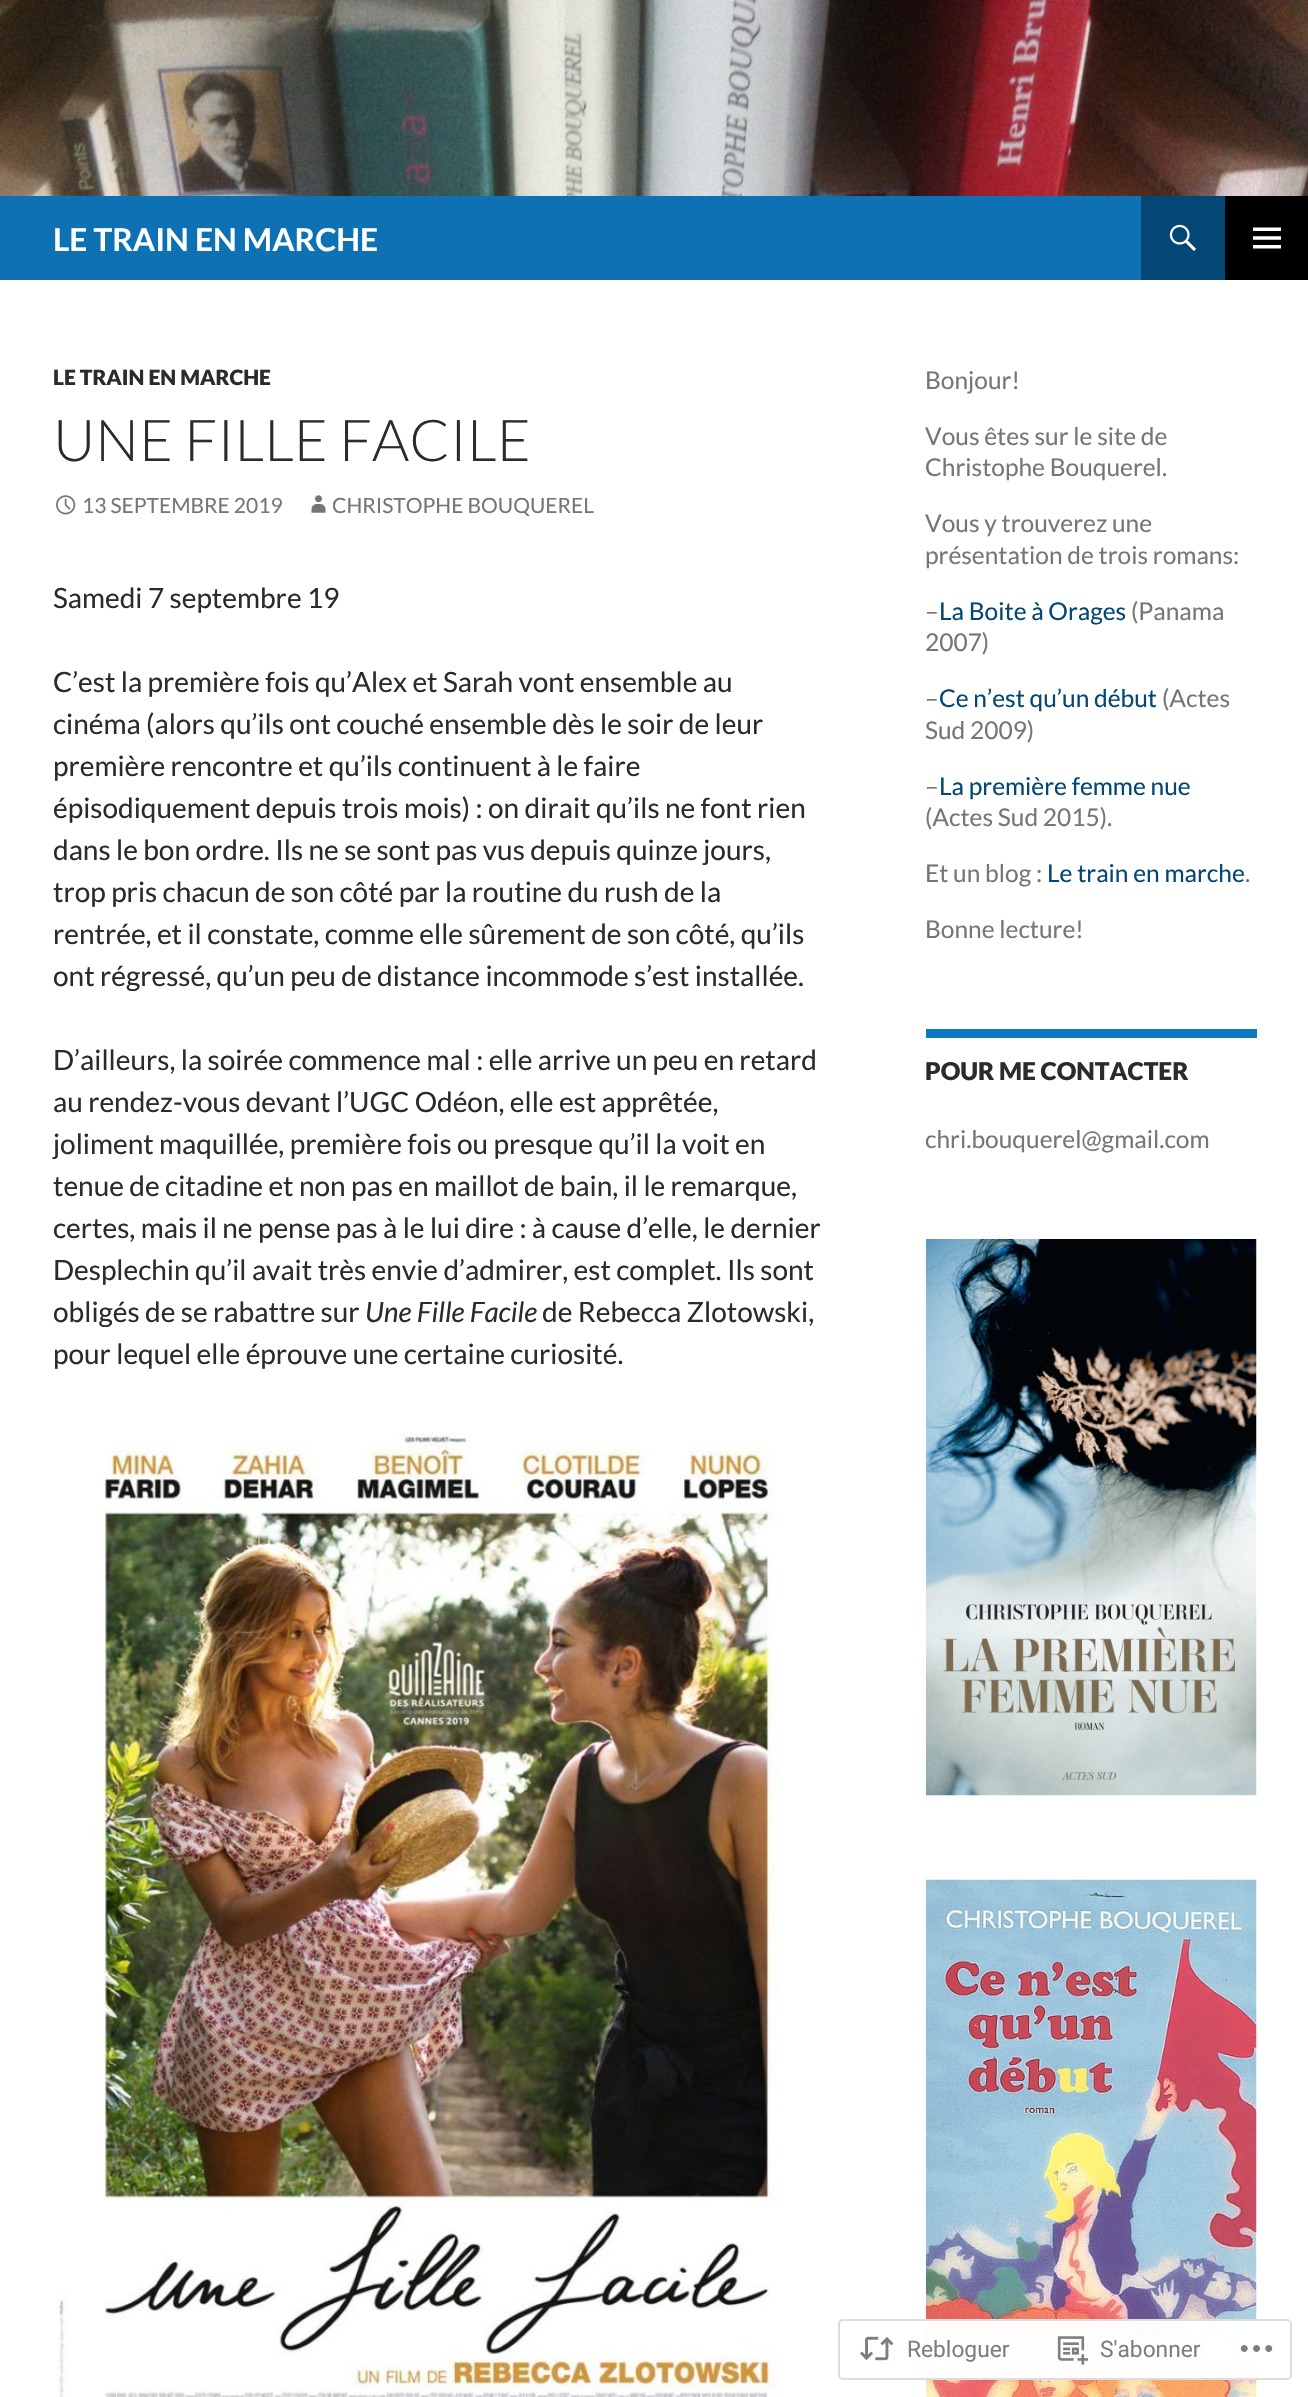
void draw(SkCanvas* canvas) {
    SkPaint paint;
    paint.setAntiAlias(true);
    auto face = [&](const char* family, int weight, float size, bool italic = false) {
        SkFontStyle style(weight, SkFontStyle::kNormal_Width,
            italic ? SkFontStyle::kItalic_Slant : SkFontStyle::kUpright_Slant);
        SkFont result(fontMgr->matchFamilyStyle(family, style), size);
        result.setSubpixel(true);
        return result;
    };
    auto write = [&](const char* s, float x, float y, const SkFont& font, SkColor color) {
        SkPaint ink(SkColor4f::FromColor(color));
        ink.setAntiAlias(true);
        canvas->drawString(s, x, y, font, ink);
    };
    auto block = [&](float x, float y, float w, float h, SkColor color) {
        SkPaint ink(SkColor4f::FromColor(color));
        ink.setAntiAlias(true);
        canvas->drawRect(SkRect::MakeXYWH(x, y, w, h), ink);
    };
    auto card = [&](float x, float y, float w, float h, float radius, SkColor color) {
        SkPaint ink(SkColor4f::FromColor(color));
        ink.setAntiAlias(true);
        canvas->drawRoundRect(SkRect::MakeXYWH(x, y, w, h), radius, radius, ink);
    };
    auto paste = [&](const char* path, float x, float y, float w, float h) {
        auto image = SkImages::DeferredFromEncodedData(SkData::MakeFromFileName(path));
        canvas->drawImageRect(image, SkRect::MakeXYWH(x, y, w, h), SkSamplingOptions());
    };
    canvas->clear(SK_ColorWHITE);
    paste("pic1.png", 0, 0, 1308, 196);
    block(0, 196, 1141, 84, SkColorSetRGB(13, 113, 180));
    auto kFont1 = face("Lato", 700, 31.5f);
    write("LE TRAIN EN MARCHE", 53, 251, kFont1, SK_ColorWHITE);
    block(1141, 196, 84, 84, SkColorSetRGB(4, 71, 116));
    paste("pic2.png", 1169, 224, 27, 27);
    block(1225, 196, 83, 84, SK_ColorBLACK);
    paste("pic3.png", 1253, 227, 28, 22);
    auto kFont2 = face("Lato", 900, 21);
    write("LE TRAIN EN MARCHE", 53, 385, kFont2, SkColorSetRGB(43, 43, 43));
    auto kFont3 = face("Lato", 300, 57.75f);
    write("UNE FILLE FACILE", 53, 461, kFont3, SkColorSetRGB(43, 43, 43));
    paste("pic4.png", 56, 495, 20, 20);
    auto kFont4 = face("Lato", 400, 21);
    write("13 SEPTEMBRE 2019", 82, 513, kFont4, SkColorSetRGB(118, 118, 118));
    paste("pic5.png", 311, 495, 15, 18);
    write("CHRISTOPHE BOUQUEREL", 332, 513, kFont4, SkColorSetRGB(118, 118, 118));
    auto kFont5 = face("Lato", 400, 28);
    write("Samedi 7 septembre 19", 53, 608, kFont5, SkColorSetRGB(43, 43, 43));
    write("C’est la première fois qu’Alex et Sarah vont ensemble au", 53, 692, kFont5, SkColorSetRGB(43, 43, 43));
    write("cinéma (alors qu’ils ont couché ensemble dès le soir de leur", 53, 734, kFont5, SkColorSetRGB(43, 43, 43));
    write("première rencontre et qu’ils continuent à le faire", 53, 776, kFont5, SkColorSetRGB(43, 43, 43));
    write("épisodiquement depuis trois mois) : on dirait qu’ils ne font rien", 53, 818, kFont5, SkColorSetRGB(43, 43, 43));
    write("dans le bon ordre. Ils ne se sont pas vus depuis quinze jours,", 53, 860, kFont5, SkColorSetRGB(43, 43, 43));
    write("trop pris chacun de son côté par la routine du rush de la", 53, 902, kFont5, SkColorSetRGB(43, 43, 43));
    write("rentrée, et il constate, comme elle sûrement de son côté, qu’ils", 53, 944, kFont5, SkColorSetRGB(43, 43, 43));
    write("ont régressé, qu’un peu de distance incommode s’est installée.", 53, 986, kFont5, SkColorSetRGB(43, 43, 43));
    write("D’ailleurs, la soirée commence mal : elle arrive un peu en retard", 53, 1070, kFont5, SkColorSetRGB(43, 43, 43));
    write("au rendez-vous devant l’UGC Odéon, elle est apprêtée,", 53, 1112, kFont5, SkColorSetRGB(43, 43, 43));
    write("joliment maquillée, première fois ou presque qu’il la voit en", 53, 1154, kFont5, SkColorSetRGB(43, 43, 43));
    write("tenue de citadine et non pas en maillot de bain, il le remarque,", 53, 1196, kFont5, SkColorSetRGB(43, 43, 43));
    write("certes, mais il ne pense pas à le lui dire : à cause d’elle, le dernier", 53, 1238, kFont5, SkColorSetRGB(43, 43, 43));
    write("Desplechin qu’il avait très envie d’admirer, est complet. Ils sont", 53, 1280, kFont5, SkColorSetRGB(43, 43, 43));
    write("obligés de se rabattre sur", 53, 1322, kFont5, SkColorSetRGB(43, 43, 43));
    auto kFont6 = face("Lato", 400, 28, true);
    write("Une Fille Facile", 365, 1322, kFont6, SkColorSetRGB(43, 43, 43));
    write("de Rebecca Zlotowski,", 542, 1322, kFont5, SkColorSetRGB(43, 43, 43));
    write("pour lequel elle éprouve une certaine curiosité.", 53, 1364, kFont5, SkColorSetRGB(43, 43, 43));
    paste("pic6.png", 58, 1433, 722, 964);
    auto kFont7 = face("Lato", 400, 24.5f);
    write("Bonjour!", 925, 389, kFont7, SkColorSetRGB(118, 118, 118));
    write("Vous êtes sur le site de", 925, 445, kFont7, SkColorSetRGB(118, 118, 118));
    write("Christophe Bouquerel.", 925, 476, kFont7, SkColorSetRGB(118, 118, 118));
    write("Vous y trouverez une", 925, 532, kFont7, SkColorSetRGB(118, 118, 118));
    write("présentation de trois romans:", 925, 564, kFont7, SkColorSetRGB(118, 118, 118));
    write("–", 925, 620, kFont7, SkColorSetRGB(118, 118, 118));
    write("La Boite à Orages", 939, 620, kFont7, SkColorSetRGB(4, 71, 116));
    write("(Panama", 1131, 620, kFont7, SkColorSetRGB(118, 118, 118));
    write("2007)", 925, 651, kFont7, SkColorSetRGB(118, 118, 118));
    write("–", 925, 707, kFont7, SkColorSetRGB(118, 118, 118));
    write("Ce n’est qu’un début", 939, 707, kFont7, SkColorSetRGB(4, 71, 116));
    write("(Actes", 1162, 707, kFont7, SkColorSetRGB(118, 118, 118));
    write("Sud 2009)", 925, 739, kFont7, SkColorSetRGB(118, 118, 118));
    write("–", 925, 795, kFont7, SkColorSetRGB(118, 118, 118));
    write("La première femme nue", 939, 795, kFont7, SkColorSetRGB(4, 71, 116));
    write("(Actes Sud 2015).", 925, 826, kFont7, SkColorSetRGB(118, 118, 118));
    write("Et un blog :", 925, 882, kFont7, SkColorSetRGB(118, 118, 118));
    write("Le train en marche", 1047, 882, kFont7, SkColorSetRGB(4, 71, 116));
    write(".", 1245, 882, kFont7, SkColorSetRGB(118, 118, 118));
    write("Bonne lecture!", 925, 938, kFont7, SkColorSetRGB(118, 118, 118));
    block(926, 1029, 331, 9, SkColorSetRGB(14, 120, 193));
    auto kFont8 = face("Lato", 900, 24.5f);
    write("POUR ME CONTACTER", 925, 1080, kFont8, SkColorSetRGB(43, 43, 43));
    write("chri.bouquerel@gmail.com", 925, 1148, kFont7, SkColorSetRGB(118, 118, 118));
    paste("pic7.png", 925, 1239, 332, 557);
    paste("pic8.png", 925, 1879, 332, 518);
    card(838, 2319, 454, 61, 5, SkColorSetARGB(250, 255, 255, 255));
    paint.setStyle(SkPaint::kStroke_Style);
    paint.setStrokeWidth(2);
    paint.setColor(SkColorSetARGB(250, 220, 220, 222));
    canvas->drawRoundRect(SkRect::MakeXYWH(839, 2320, 452, 59), 4, 4, paint);
    paste("pic9.png", 860, 2336, 34, 25);
    auto kFont9 = face("Roboto", 400, 22.75f);
    write("Rebloguer", 907, 2357, kFont9, SkColorSetRGB(123, 127, 132));
    paste("pic10.png", 1057, 2336, 32, 29);
    write("S'abonner", 1100, 2357, kFont9, SkColorSetRGB(123, 127, 132));
    paste("pic11.png", 1240, 2345, 33, 7);
}
